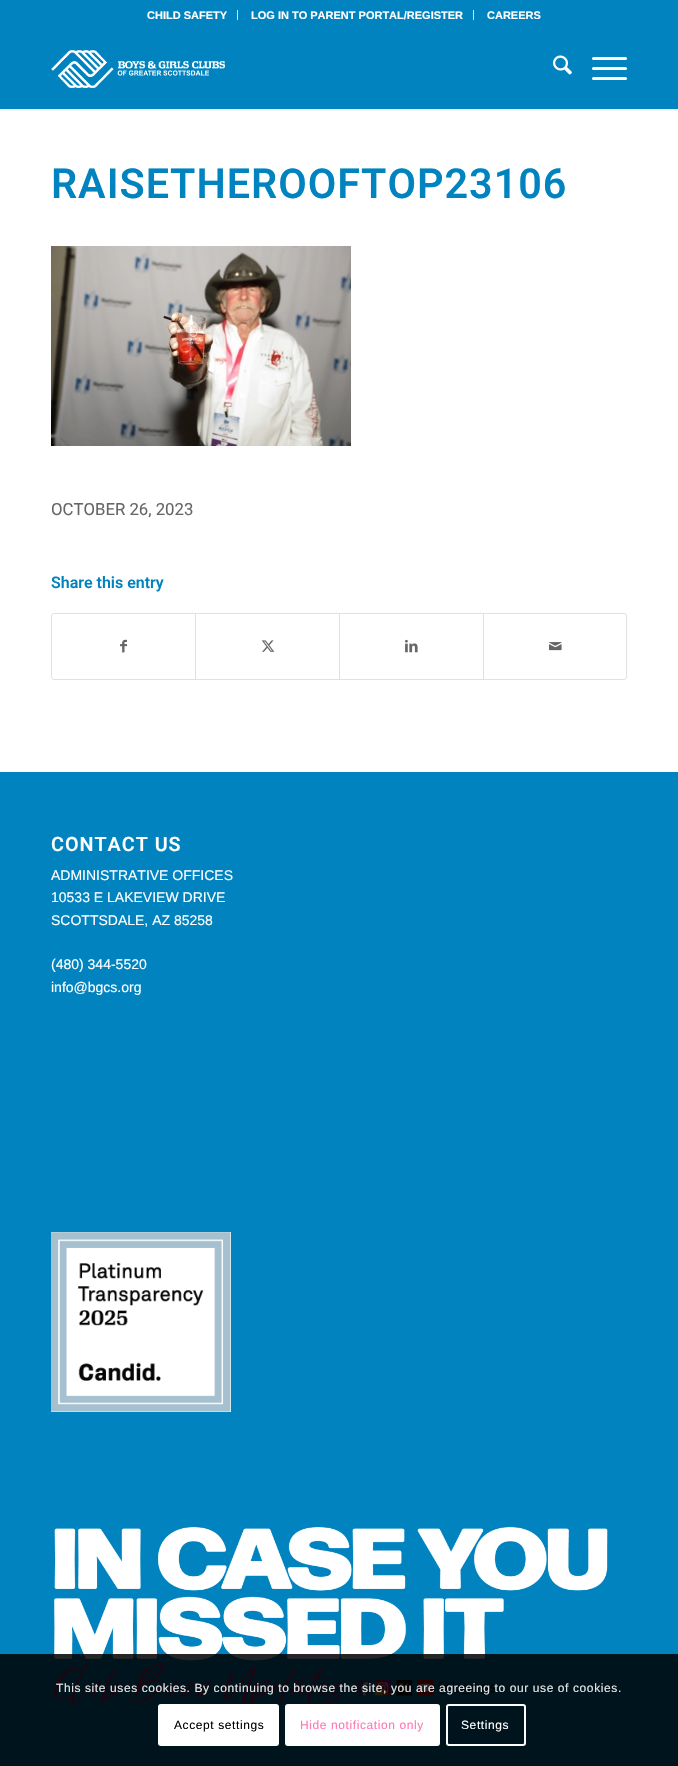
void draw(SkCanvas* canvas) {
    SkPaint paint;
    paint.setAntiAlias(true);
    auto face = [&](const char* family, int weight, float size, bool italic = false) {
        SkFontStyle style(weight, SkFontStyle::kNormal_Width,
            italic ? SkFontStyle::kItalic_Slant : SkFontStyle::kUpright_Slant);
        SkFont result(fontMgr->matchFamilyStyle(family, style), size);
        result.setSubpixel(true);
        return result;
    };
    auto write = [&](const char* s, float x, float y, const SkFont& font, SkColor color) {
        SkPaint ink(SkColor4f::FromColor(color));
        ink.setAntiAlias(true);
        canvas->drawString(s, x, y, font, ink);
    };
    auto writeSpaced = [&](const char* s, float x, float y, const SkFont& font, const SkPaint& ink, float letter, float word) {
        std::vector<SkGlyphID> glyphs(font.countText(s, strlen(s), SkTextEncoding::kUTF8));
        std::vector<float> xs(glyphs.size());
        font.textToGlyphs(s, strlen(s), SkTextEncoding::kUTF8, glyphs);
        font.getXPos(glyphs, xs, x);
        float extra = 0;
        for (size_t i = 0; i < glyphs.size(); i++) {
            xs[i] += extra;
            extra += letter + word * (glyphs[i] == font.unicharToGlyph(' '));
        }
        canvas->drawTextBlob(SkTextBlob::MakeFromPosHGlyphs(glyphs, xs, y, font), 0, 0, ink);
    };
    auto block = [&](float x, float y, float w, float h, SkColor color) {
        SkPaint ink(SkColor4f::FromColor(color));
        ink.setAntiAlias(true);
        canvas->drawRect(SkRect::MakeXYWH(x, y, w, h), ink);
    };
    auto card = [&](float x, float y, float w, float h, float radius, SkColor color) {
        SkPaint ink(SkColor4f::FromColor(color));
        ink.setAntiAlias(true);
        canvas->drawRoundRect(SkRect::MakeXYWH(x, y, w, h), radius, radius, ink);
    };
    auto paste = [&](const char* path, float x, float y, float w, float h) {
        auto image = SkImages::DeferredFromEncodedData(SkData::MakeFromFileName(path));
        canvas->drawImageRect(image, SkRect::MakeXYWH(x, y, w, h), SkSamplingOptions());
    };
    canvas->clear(SkColorSetRGB(0, 131, 191));
    block(0, 109, 678, 663, SK_ColorWHITE);
    paint.setColor(SkColorSetARGB(26, 0, 0, 0));
    paint.setMaskFilter(SkMaskFilter::MakeBlur(kNormal_SkBlurStyle, 1));
    canvas->drawRect(SkRect::MakeXYWH(-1, -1, 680, 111), paint);
    paint.setMaskFilter(nullptr);
    block(0, 0, 678, 109, SkColorSetRGB(0, 131, 191));
    block(237, 10, 1, 10, SkColorSetRGB(225, 225, 225));
    auto kFont1 = face("Liberation Sans", 700, 11);
    write("CHILD SAFETY", 147, 19, kFont1, SK_ColorWHITE);
    block(473, 10, 1, 10, SkColorSetRGB(225, 225, 225));
    write("LOG IN TO PARENT PORTAL/REGISTER", 251, 19, kFont1, SK_ColorWHITE);
    write("CAREERS", 487, 19, kFont1, SK_ColorWHITE);
    paste("pic1.png", 51, 50, 174, 38);
    paste("pic2.png", 553, 55, 19, 20);
    card(592, 67, 35, 3, 1.5f, SK_ColorWHITE);
    card(592, 57, 35, 3, 1.5f, SK_ColorWHITE);
    card(592, 77, 35, 3, 1.5f, SK_ColorWHITE);
    auto kFont2 = face("Heebo", 600, 41.4f);
    paint.setColor(SkColorSetRGB(0, 131, 191));
    writeSpaced("RAISETHEROOFTOP23106", 51, 198, kFont2, paint, 1, 0);
    paste("pic3.png", 51, 246, 300, 200);
    auto kFont3 = face("Heebo", 400, 16.75f);
    write("OCTOBER 26, 2023", 51, 515, kFont3, SkColorSetRGB(102, 102, 102));
    auto kFont4 = face("Heebo", 600, 16);
    write("Share this entry", 51, 588, kFont4, SkColorSetRGB(0, 131, 191));
    paint.setStyle(SkPaint::kStroke_Style);
    paint.setStrokeWidth(1);
    paint.setColor(SkColorSetRGB(225, 225, 225));
    canvas->drawRoundRect(SkRect::MakeXYWH(51.5f, 613.5f, 575, 66), 2.5f, 2.5f, paint);
    paste("pic4.png", 120, 639, 7, 14);
    block(195, 614, 1, 65, SkColorSetRGB(225, 225, 225));
    paste("pic5.png", 261, 640, 14, 12);
    block(339, 614, 1, 65, SkColorSetRGB(225, 225, 225));
    paste("pic6.png", 405, 639, 13, 14);
    block(483, 614, 1, 65, SkColorSetRGB(225, 225, 225));
    paste("pic7.png", 549, 642, 13, 9);
    auto kFont5 = face("Heebo", 600, 19.75f);
    paint.setStyle(SkPaint::kFill_Style);
    paint.setColor(SK_ColorWHITE);
    writeSpaced("CONTACT US", 51, 851, kFont5, paint, 1, 0);
    auto kFont6 = face("Liberation Sans", 400, 14);
    write("ADMINISTRATIVE OFFICES", 51, 880, kFont6, SK_ColorWHITE);
    write("10533 E LAKEVIEW DRIVE", 51, 902, kFont6, SK_ColorWHITE);
    write("SCOTTSDALE, AZ 85258", 51, 925, kFont6, SK_ColorWHITE);
    write("(480) 344-5520", 51, 969, kFont6, SK_ColorWHITE);
    write("info@bgcs.org", 51, 992, kFont6, SK_ColorWHITE);
    paste("pic8.png", 51, 1232, 180, 180);
    paste("pic9.png", 54, 1527, 554, 178);
    block(0, 1654, 678, 112, SkColorSetARGB(217, 0, 0, 0));
    auto kFont7 = face("Liberation Sans", 400, 12);
    paint.setColor(SkColorSetRGB(230, 231, 232));
    writeSpaced("This site uses cookies. By continuing to browse the site, you are agreeing to our use of cookies.", 56, 1692, kFont7, paint, 0.6f, 0);
    card(158, 1704, 121, 42, 3, SK_ColorWHITE);
    paint.setColor(SK_ColorBLACK);
    writeSpaced("Accept settings", 174, 1729, kFont7, paint, 0.6f, 0);
    paint.setColor(SK_ColorWHITE);
    canvas->drawRoundRect(SkRect::MakeXYWH(286, 1705, 153, 40), 2, 2, paint);
    paint.setStyle(SkPaint::kStroke_Style);
    paint.setStrokeWidth(2);
    canvas->drawRoundRect(SkRect::MakeXYWH(286, 1705, 153, 40), 2, 2, paint);
    paint.setStyle(SkPaint::kFill_Style);
    paint.setColor(SkColorSetRGB(255, 117, 181));
    writeSpaced("Hide notification only", 300, 1729, kFont7, paint, 0.6f, 0);
    paint.setStyle(SkPaint::kStroke_Style);
    paint.setColor(SK_ColorWHITE);
    canvas->drawRoundRect(SkRect::MakeXYWH(447, 1705, 78, 40), 2, 2, paint);
    paint.setStyle(SkPaint::kFill_Style);
    writeSpaced("Settings", 461, 1729, kFont7, paint, 0.6f, 0);
}
